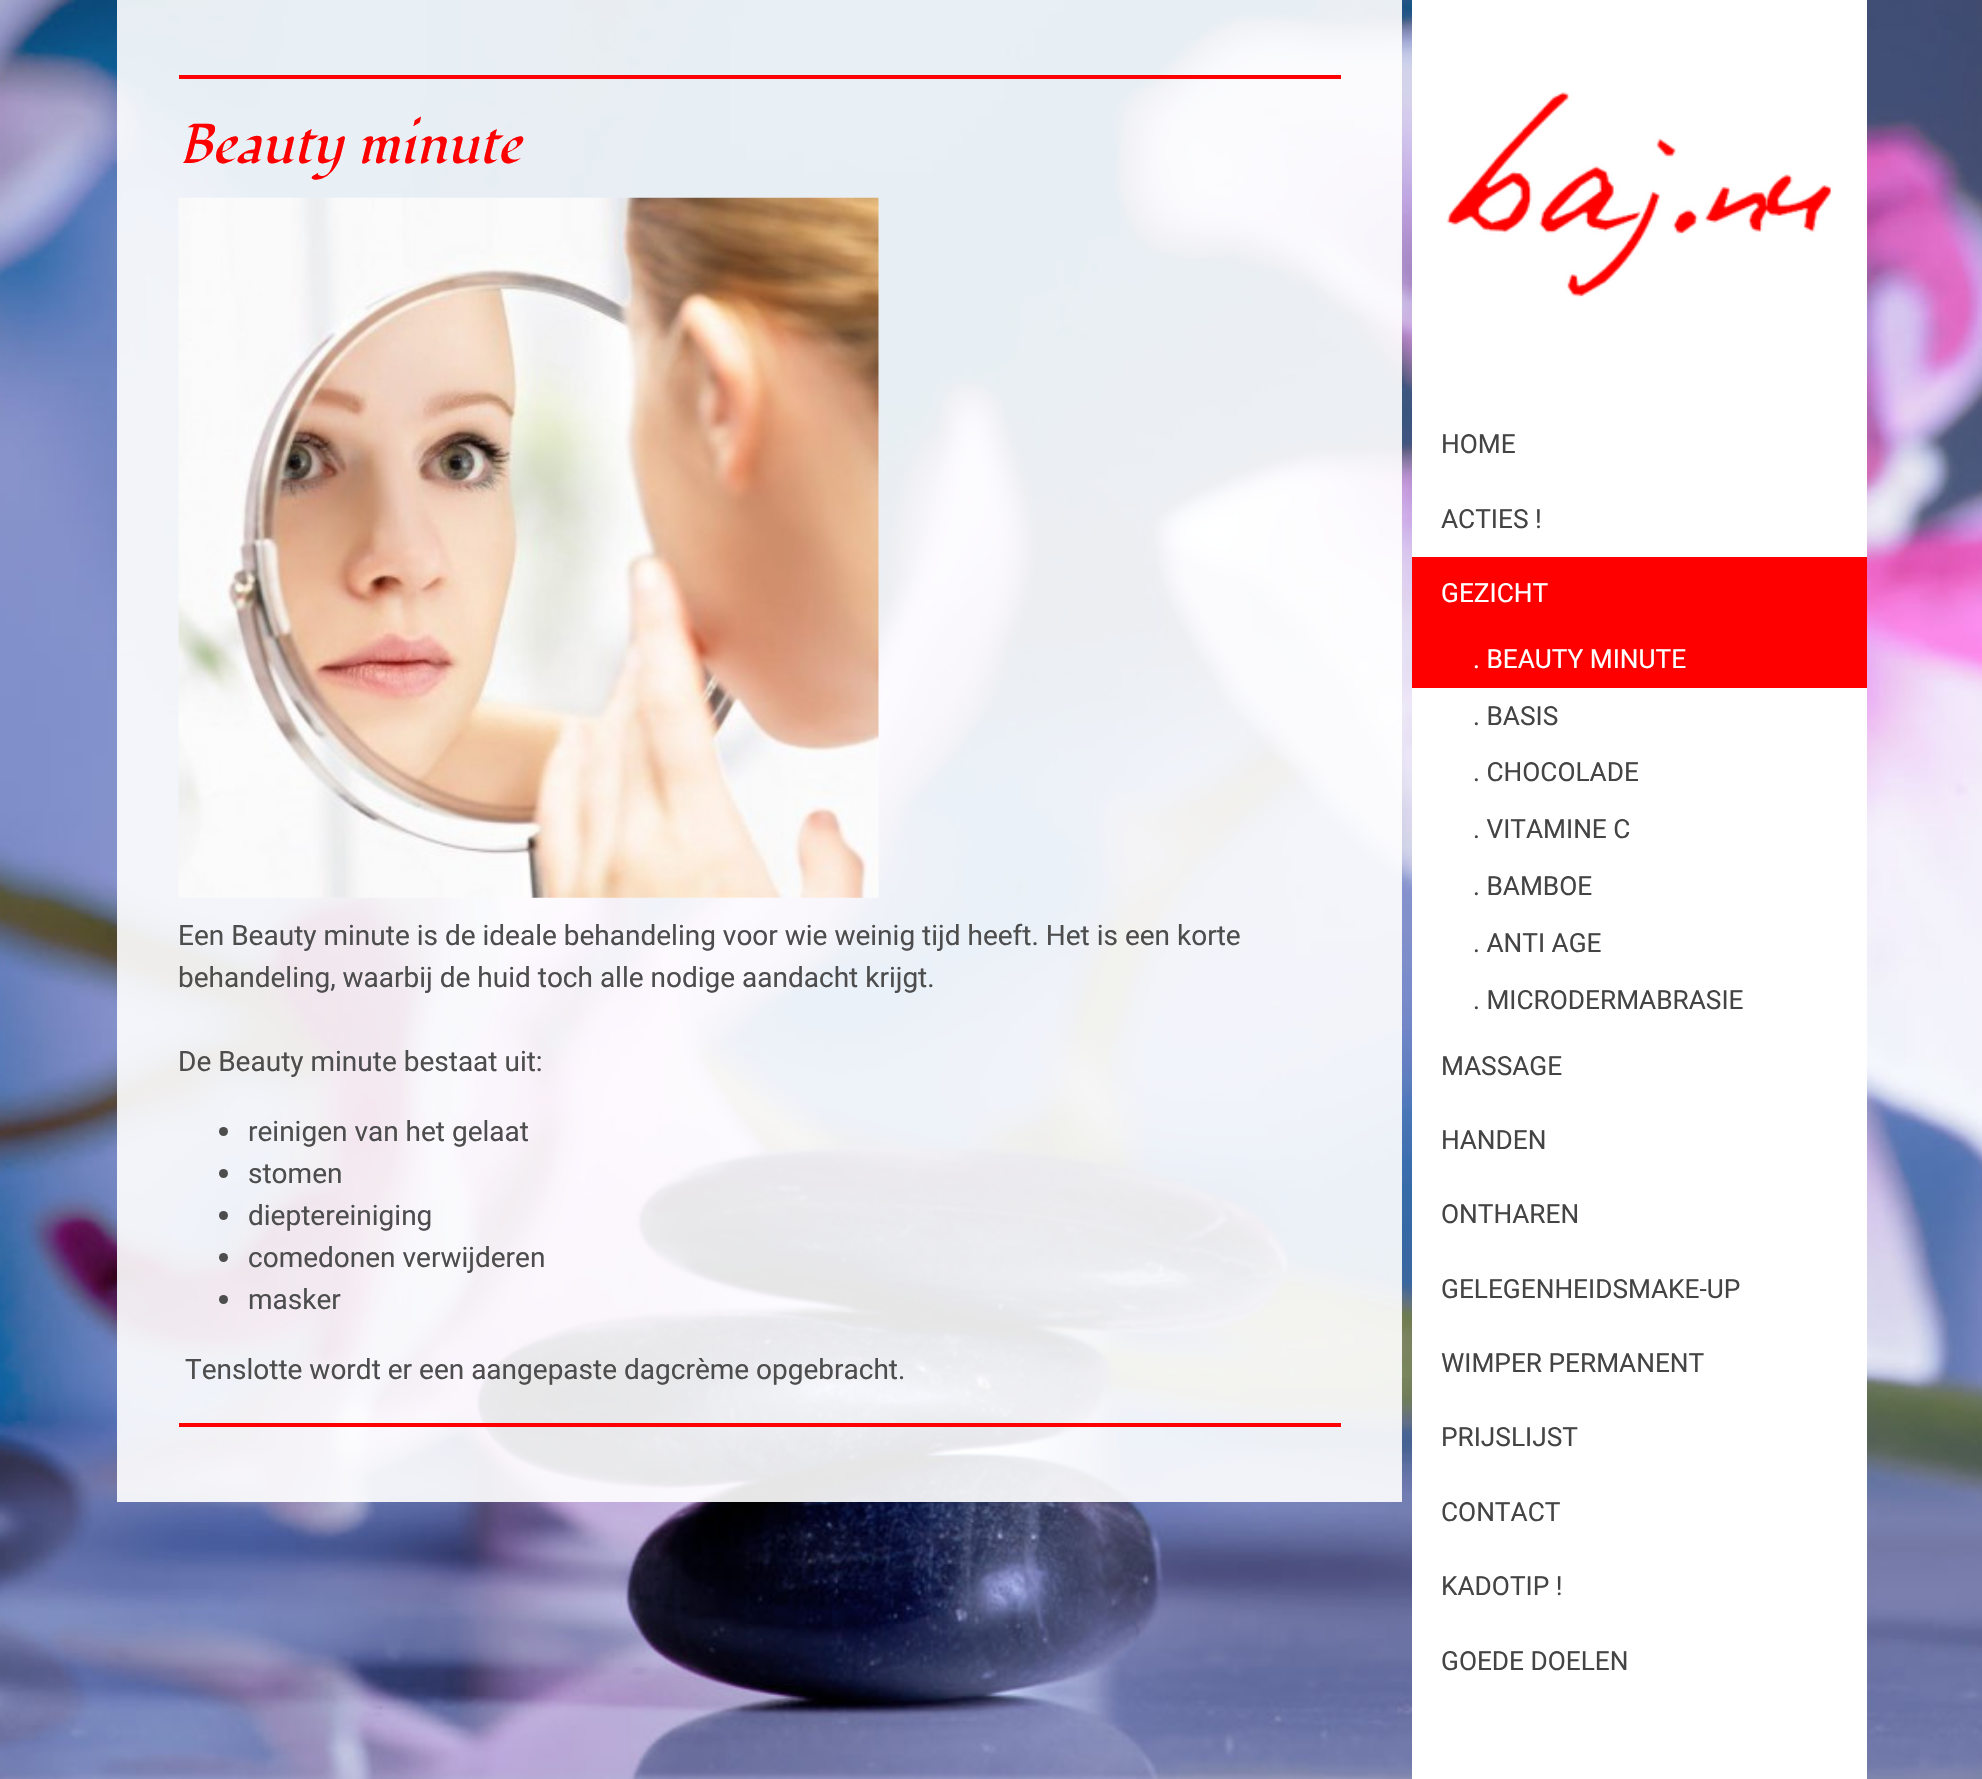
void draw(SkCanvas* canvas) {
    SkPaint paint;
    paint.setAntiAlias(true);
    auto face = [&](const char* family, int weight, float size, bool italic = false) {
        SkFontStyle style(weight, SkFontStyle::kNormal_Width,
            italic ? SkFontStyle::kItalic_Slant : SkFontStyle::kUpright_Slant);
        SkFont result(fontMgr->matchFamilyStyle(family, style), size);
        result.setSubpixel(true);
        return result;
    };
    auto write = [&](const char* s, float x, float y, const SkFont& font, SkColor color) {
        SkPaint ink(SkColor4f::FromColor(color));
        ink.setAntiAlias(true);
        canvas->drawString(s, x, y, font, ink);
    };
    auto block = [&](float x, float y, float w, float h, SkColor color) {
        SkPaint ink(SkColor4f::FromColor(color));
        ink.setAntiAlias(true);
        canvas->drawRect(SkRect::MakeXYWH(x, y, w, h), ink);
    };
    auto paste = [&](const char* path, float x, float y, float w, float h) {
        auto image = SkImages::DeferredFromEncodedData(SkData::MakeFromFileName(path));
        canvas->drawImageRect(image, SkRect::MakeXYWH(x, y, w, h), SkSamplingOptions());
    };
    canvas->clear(SK_ColorWHITE);
    paste("pic1.png", 0, 0, 1982, 1779);
    block(117, 0, 1285, 1502, SkColorSetARGB(230, 255, 255, 255));
    block(179, 75, 1162, 4, SkColorSetRGB(255, 0, 0));
    auto kFont1 = face("Fondamento", 400, 56, true);
    write("Beauty minute", 178, 163, kFont1, SkColorSetRGB(255, 0, 0));
    paste("pic2.png", 178, 197, 701, 701);
    auto kFont2 = face("Roboto", 400, 28);
    write("Een Beauty minute is de ideale behandeling voor wie weinig tijd heeft. Het is een korte", 178, 945, kFont2, SkColorSetRGB(77, 77, 77));
    write("behandeling, waarbij de huid toch alle nodige aandacht krijgt.", 178, 987, kFont2, SkColorSetRGB(77, 77, 77));
    write("De Beauty minute bestaat uit:", 178, 1071, kFont2, SkColorSetRGB(77, 77, 77));
    paint.setColor(SkColorSetRGB(77, 77, 77));
    canvas->drawCircle(223.5f, 1131.5f, 4.5f, paint);
    write("reinigen van het gelaat", 248, 1141, kFont2, SkColorSetRGB(77, 77, 77));
    canvas->drawCircle(223.5f, 1173.5f, 4.5f, paint);
    write("stomen", 248, 1183, kFont2, SkColorSetRGB(77, 77, 77));
    canvas->drawCircle(223.5f, 1215.5f, 4.5f, paint);
    write("dieptereiniging", 248, 1225, kFont2, SkColorSetRGB(77, 77, 77));
    canvas->drawCircle(223.5f, 1257.5f, 4.5f, paint);
    write("comedonen verwijderen", 248, 1267, kFont2, SkColorSetRGB(77, 77, 77));
    canvas->drawCircle(223.5f, 1299.5f, 4.5f, paint);
    write("masker", 248, 1309, kFont2, SkColorSetRGB(77, 77, 77));
    write("Tenslotte wordt er een aangepaste dagcrème opgebracht.", 185, 1379, kFont2, SkColorSetRGB(77, 77, 77));
    block(179, 1423, 1162, 4, SkColorSetRGB(255, 0, 0));
    block(1412, 0, 455, 1779, SK_ColorWHITE);
    paste("pic3.png", 1446, 92, 387, 205);
    auto kFont3 = face("Roboto", 400, 26.25f);
    write("HOME", 1441, 453, kFont3, SkColorSetRGB(68, 68, 68));
    write("ACTIES !", 1441, 528, kFont3, SkColorSetRGB(68, 68, 68));
    block(1412, 557, 455, 131, SkColorSetRGB(255, 0, 0));
    write("GEZICHT", 1441, 602, kFont3, SK_ColorWHITE);
    write(". BEAUTY MINUTE", 1473, 668, kFont3, SK_ColorWHITE);
    write(". BASIS", 1473, 725, kFont3, SkColorSetRGB(68, 68, 68));
    write(". CHOCOLADE", 1473, 781, kFont3, SkColorSetRGB(68, 68, 68));
    write(". VITAMINE C", 1473, 838, kFont3, SkColorSetRGB(68, 68, 68));
    write(". BAMBOE", 1473, 895, kFont3, SkColorSetRGB(68, 68, 68));
    write(". ANTI AGE", 1473, 952, kFont3, SkColorSetRGB(68, 68, 68));
    write(". MICRODERMABRASIE", 1473, 1009, kFont3, SkColorSetRGB(68, 68, 68));
    write("MASSAGE", 1441, 1075, kFont3, SkColorSetRGB(68, 68, 68));
    write("HANDEN", 1441, 1149, kFont3, SkColorSetRGB(68, 68, 68));
    write("ONTHAREN", 1441, 1223, kFont3, SkColorSetRGB(68, 68, 68));
    write("GELEGENHEIDSMAKE-UP", 1441, 1298, kFont3, SkColorSetRGB(68, 68, 68));
    write("WIMPER PERMANENT", 1441, 1372, kFont3, SkColorSetRGB(68, 68, 68));
    write("PRIJSLIJST", 1441, 1446, kFont3, SkColorSetRGB(68, 68, 68));
    write("CONTACT", 1441, 1521, kFont3, SkColorSetRGB(68, 68, 68));
    write("KADOTIP !", 1441, 1595, kFont3, SkColorSetRGB(68, 68, 68));
    write("GOEDE DOELEN", 1441, 1670, kFont3, SkColorSetRGB(68, 68, 68));
}
